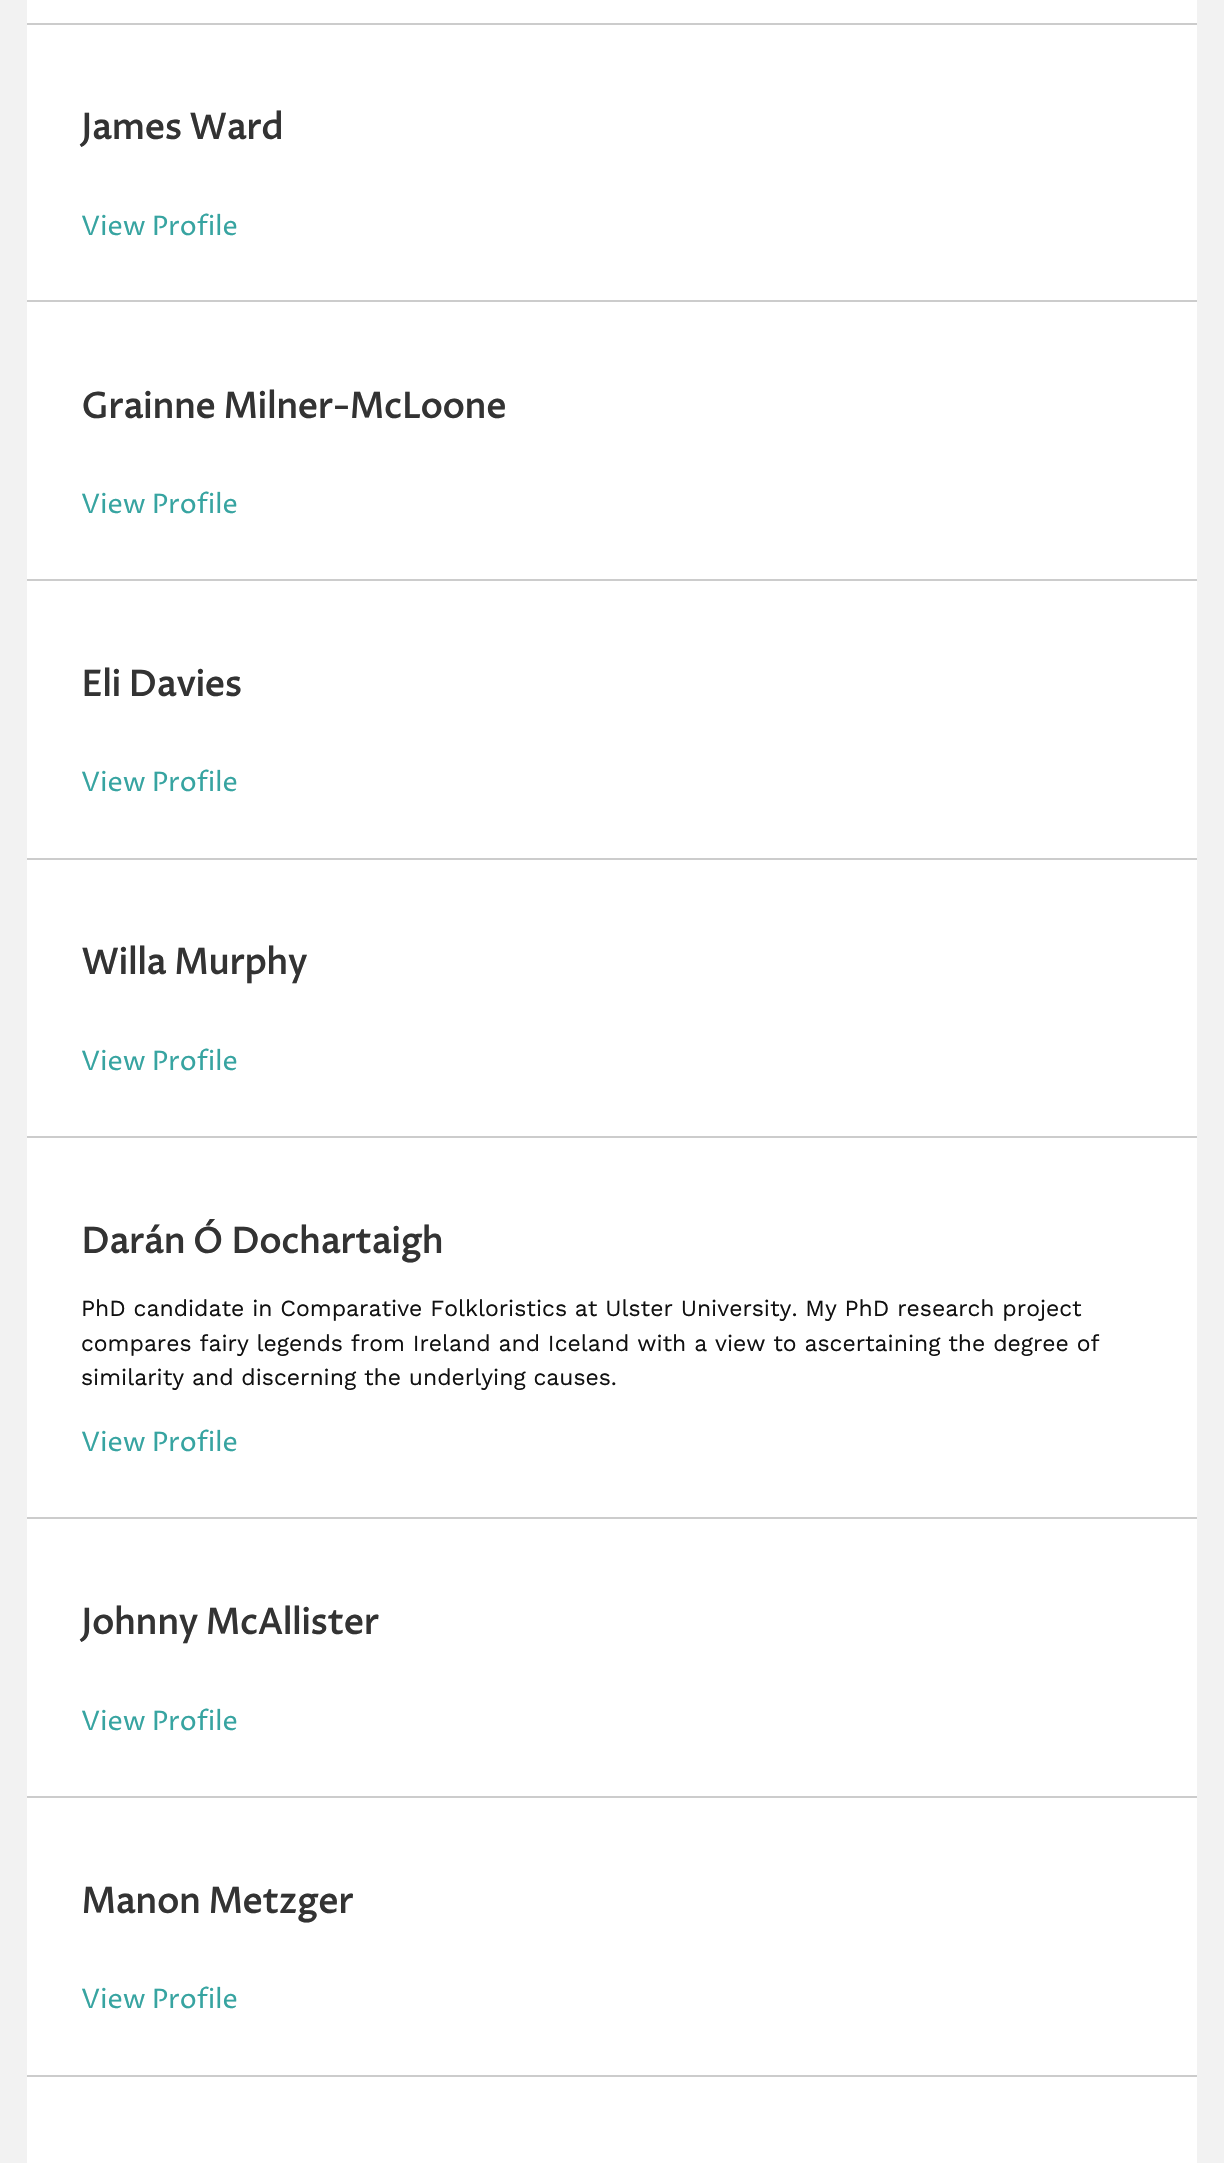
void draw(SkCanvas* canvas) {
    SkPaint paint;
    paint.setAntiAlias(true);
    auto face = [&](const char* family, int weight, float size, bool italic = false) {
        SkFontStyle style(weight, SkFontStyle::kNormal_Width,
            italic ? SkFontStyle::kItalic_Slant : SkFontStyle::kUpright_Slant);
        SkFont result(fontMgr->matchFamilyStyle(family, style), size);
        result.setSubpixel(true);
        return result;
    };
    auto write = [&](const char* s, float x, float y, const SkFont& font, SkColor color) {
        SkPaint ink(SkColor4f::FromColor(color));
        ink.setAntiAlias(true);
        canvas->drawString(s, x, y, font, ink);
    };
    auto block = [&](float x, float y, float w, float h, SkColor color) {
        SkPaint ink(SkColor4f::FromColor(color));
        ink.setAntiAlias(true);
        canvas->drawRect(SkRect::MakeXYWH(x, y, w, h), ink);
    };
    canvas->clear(SkColorSetRGB(242, 242, 242));
    block(27, 0, 1170, 2163, SK_ColorWHITE);
    block(27, 23, 1170, 2, SkColorSetRGB(204, 204, 204));
    block(27, 300, 1170, 2, SkColorSetRGB(204, 204, 204));
    auto kFont1 = face("Proza Libre", 700, 35.1f);
    write("James Ward", 81, 139, kFont1, SkColorSetRGB(51, 51, 51));
    auto kFont2 = face("Proza Libre", 400, 27);
    write("View Profile", 81, 235, kFont2, SkColorSetRGB(55, 164, 161));
    block(27, 579, 1170, 2, SkColorSetRGB(204, 204, 204));
    write("Grainne Milner-McLoone", 81, 418, kFont1, SkColorSetRGB(51, 51, 51));
    write("View Profile", 81, 513, kFont2, SkColorSetRGB(55, 164, 161));
    block(27, 858, 1170, 2, SkColorSetRGB(204, 204, 204));
    write("Eli Davies", 81, 696, kFont1, SkColorSetRGB(51, 51, 51));
    write("View Profile", 81, 791, kFont2, SkColorSetRGB(55, 164, 161));
    block(27, 1136, 1170, 2, SkColorSetRGB(204, 204, 204));
    write("Willa Murphy", 81, 974, kFont1, SkColorSetRGB(51, 51, 51));
    write("View Profile", 81, 1070, kFont2, SkColorSetRGB(55, 164, 161));
    block(27, 1517, 1170, 2, SkColorSetRGB(204, 204, 204));
    write("Darán Ó Dochartaigh", 81, 1253, kFont1, SkColorSetRGB(51, 51, 51));
    auto kFont3 = face("Work Sans", 400, 22.95f);
    write("PhD candidate in Comparative Folkloristics at Ulster University. My PhD research project", 81, 1316, kFont3, SkColorSetRGB(17, 17, 17));
    write("compares fairy legends from Ireland and Iceland with a view to ascertaining the degree of", 81, 1351, kFont3, SkColorSetRGB(17, 17, 17));
    write("similarity and discerning the underlying causes.", 81, 1385, kFont3, SkColorSetRGB(17, 17, 17));
    write("View Profile", 81, 1451, kFont2, SkColorSetRGB(55, 164, 161));
    block(27, 1796, 1170, 2, SkColorSetRGB(204, 204, 204));
    write("Johnny McAllister", 81, 1634, kFont1, SkColorSetRGB(51, 51, 51));
    write("View Profile", 81, 1730, kFont2, SkColorSetRGB(55, 164, 161));
    block(27, 2075, 1170, 2, SkColorSetRGB(204, 204, 204));
    write("Manon Metzger", 81, 1913, kFont1, SkColorSetRGB(51, 51, 51));
    write("View Profile", 81, 2008, kFont2, SkColorSetRGB(55, 164, 161));
}
